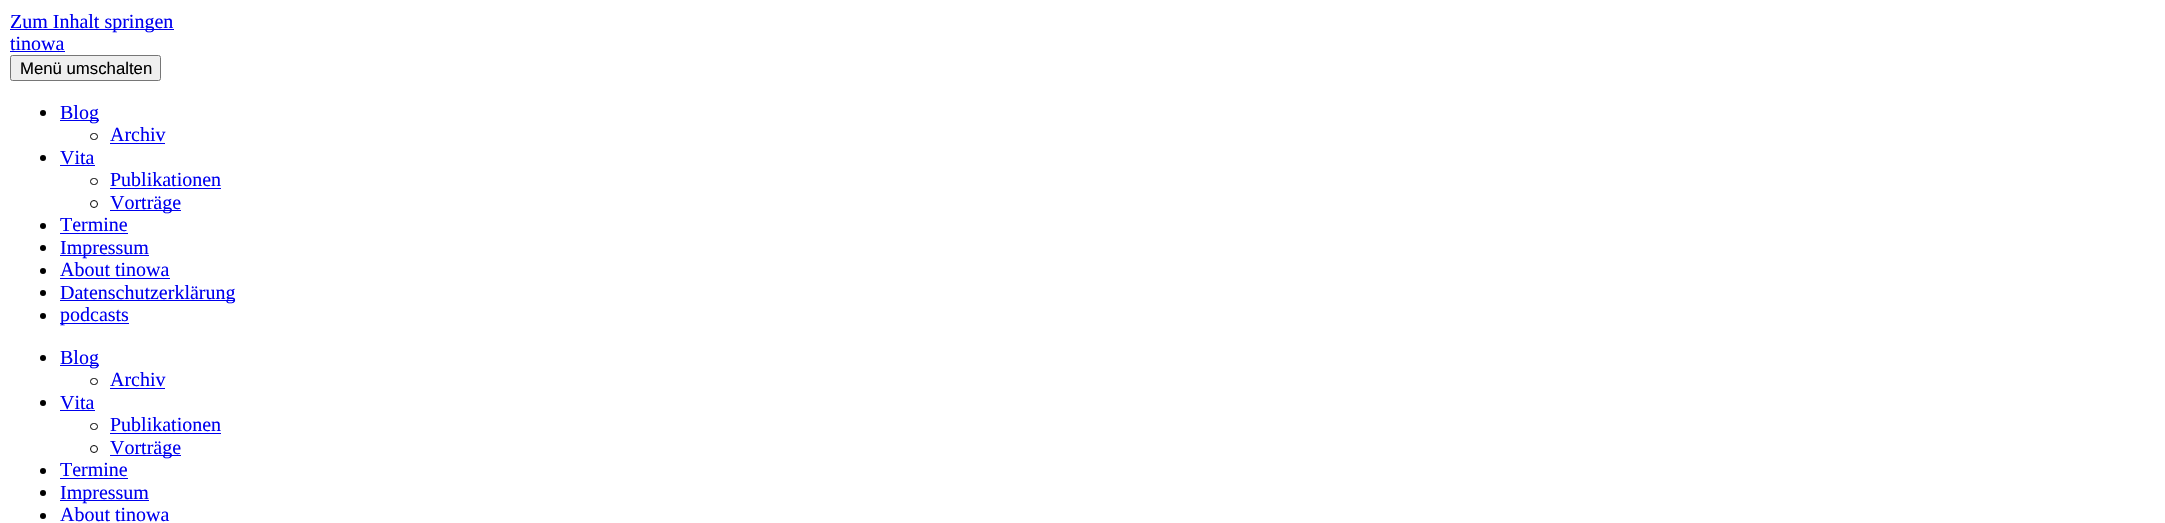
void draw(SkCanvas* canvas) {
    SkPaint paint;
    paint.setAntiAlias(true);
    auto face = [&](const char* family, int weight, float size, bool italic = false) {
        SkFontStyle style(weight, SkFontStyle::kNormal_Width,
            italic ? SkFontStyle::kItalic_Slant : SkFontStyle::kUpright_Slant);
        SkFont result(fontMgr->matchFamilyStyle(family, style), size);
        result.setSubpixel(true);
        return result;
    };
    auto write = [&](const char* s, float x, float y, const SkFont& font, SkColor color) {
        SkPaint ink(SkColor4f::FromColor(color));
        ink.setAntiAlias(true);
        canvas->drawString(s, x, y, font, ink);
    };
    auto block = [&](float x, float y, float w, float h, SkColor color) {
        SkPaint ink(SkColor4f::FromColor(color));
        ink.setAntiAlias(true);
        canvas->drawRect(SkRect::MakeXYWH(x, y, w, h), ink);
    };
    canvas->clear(SK_ColorWHITE);
    block(10, 29, 164, 1, SkColorSetRGB(0, 0, 238));
    auto kFont1 = face("Liberation Serif", 400, 20);
    write("Zum Inhalt springen", 10, 28, kFont1, SkColorSetRGB(0, 0, 238));
    write("tinowa", 10, 50, kFont1, SkColorSetRGB(0, 0, 238));
    block(10, 51, 55, 1, SkColorSetRGB(0, 0, 238));
    paint.setColor(SkColorSetRGB(239, 239, 239));
    canvas->drawRoundRect(SkRect::MakeXYWH(10.5f, 55.5f, 150, 25), 2, 2, paint);
    paint.setStyle(SkPaint::kStroke_Style);
    paint.setStrokeWidth(1);
    paint.setColor(SkColorSetRGB(118, 118, 118));
    canvas->drawRoundRect(SkRect::MakeXYWH(10.5f, 55.5f, 150, 25), 2, 2, paint);
    auto kFont2 = face("Liberation Sans", 400, 16.75f);
    write("Menü umschalten", 20, 74, kFont2, SK_ColorBLACK);
    paint.setStyle(SkPaint::kFill_Style);
    paint.setColor(SK_ColorBLACK);
    canvas->drawCircle(43, 113, 3, paint);
    block(60, 120, 39, 1, SkColorSetRGB(0, 0, 238));
    write("Blog", 60, 119, kFont1, SkColorSetRGB(0, 0, 238));
    paint.setStyle(SkPaint::kStroke_Style);
    canvas->drawRoundRect(SkRect::MakeXYWH(90.5f, 133.5f, 7, 6), 3, 3, paint);
    write("Archiv", 110, 141, kFont1, SkColorSetRGB(0, 0, 238));
    block(110, 143, 55, 1, SkColorSetRGB(0, 0, 238));
    paint.setStyle(SkPaint::kFill_Style);
    canvas->drawCircle(43, 158, 3, paint);
    write("Vita", 60, 164, kFont1, SkColorSetRGB(0, 0, 238));
    block(60, 165, 35, 1, SkColorSetRGB(0, 0, 238));
    paint.setStyle(SkPaint::kStroke_Style);
    canvas->drawRoundRect(SkRect::MakeXYWH(90.5f, 178.5f, 7, 6), 3, 3, paint);
    write("Publikationen", 110, 186, kFont1, SkColorSetRGB(0, 0, 238));
    block(110, 188, 111, 1, SkColorSetRGB(0, 0, 238));
    canvas->drawCircle(94, 204, 3.5f, paint);
    block(110, 210, 71, 1, SkColorSetRGB(0, 0, 238));
    write("Vorträge", 110, 209, kFont1, SkColorSetRGB(0, 0, 238));
    paint.setStyle(SkPaint::kFill_Style);
    canvas->drawCircle(43, 226, 3, paint);
    write("Termine", 60, 231, kFont1, SkColorSetRGB(0, 0, 238));
    block(60, 233, 68, 1, SkColorSetRGB(0, 0, 238));
    canvas->drawCircle(43, 248, 3, paint);
    block(60, 255, 89, 1, SkColorSetRGB(0, 0, 238));
    write("Impressum", 60, 254, kFont1, SkColorSetRGB(0, 0, 238));
    canvas->drawCircle(43, 271, 3, paint);
    write("About tinowa", 60, 276, kFont1, SkColorSetRGB(0, 0, 238));
    block(60, 278, 110, 1, SkColorSetRGB(0, 0, 238));
    canvas->drawCircle(43, 293, 3, paint);
    block(60, 300, 175, 1, SkColorSetRGB(0, 0, 238));
    write("Datenschutzerklärung", 60, 299, kFont1, SkColorSetRGB(0, 0, 238));
    canvas->drawCircle(43, 316, 3, paint);
    block(60, 323, 69, 1, SkColorSetRGB(0, 0, 238));
    write("podcasts", 60, 321, kFont1, SkColorSetRGB(0, 0, 238));
    canvas->drawCircle(43, 358, 3, paint);
    block(60, 365, 39, 1, SkColorSetRGB(0, 0, 238));
    write("Blog", 60, 364, kFont1, SkColorSetRGB(0, 0, 238));
    paint.setStyle(SkPaint::kStroke_Style);
    canvas->drawRoundRect(SkRect::MakeXYWH(90.5f, 378.5f, 7, 6), 3, 3, paint);
    write("Archiv", 110, 386, kFont1, SkColorSetRGB(0, 0, 238));
    block(110, 388, 55, 1, SkColorSetRGB(0, 0, 238));
    paint.setStyle(SkPaint::kFill_Style);
    canvas->drawCircle(43, 403, 3, paint);
    write("Vita", 60, 409, kFont1, SkColorSetRGB(0, 0, 238));
    block(60, 410, 35, 1, SkColorSetRGB(0, 0, 238));
    paint.setStyle(SkPaint::kStroke_Style);
    canvas->drawRoundRect(SkRect::MakeXYWH(90.5f, 423.5f, 7, 6), 3, 3, paint);
    write("Publikationen", 110, 431, kFont1, SkColorSetRGB(0, 0, 238));
    block(110, 433, 111, 1, SkColorSetRGB(0, 0, 238));
    canvas->drawCircle(94, 449, 3.5f, paint);
    block(110, 455, 71, 1, SkColorSetRGB(0, 0, 238));
    write("Vorträge", 110, 454, kFont1, SkColorSetRGB(0, 0, 238));
    paint.setStyle(SkPaint::kFill_Style);
    canvas->drawCircle(43, 471, 3, paint);
    write("Termine", 60, 476, kFont1, SkColorSetRGB(0, 0, 238));
    block(60, 478, 68, 1, SkColorSetRGB(0, 0, 238));
    canvas->drawCircle(43, 493, 3, paint);
    block(60, 500, 89, 1, SkColorSetRGB(0, 0, 238));
    write("Impressum", 60, 499, kFont1, SkColorSetRGB(0, 0, 238));
    canvas->drawCircle(43, 516, 3, paint);
    write("About tinowa", 60, 521, kFont1, SkColorSetRGB(0, 0, 238));
}
